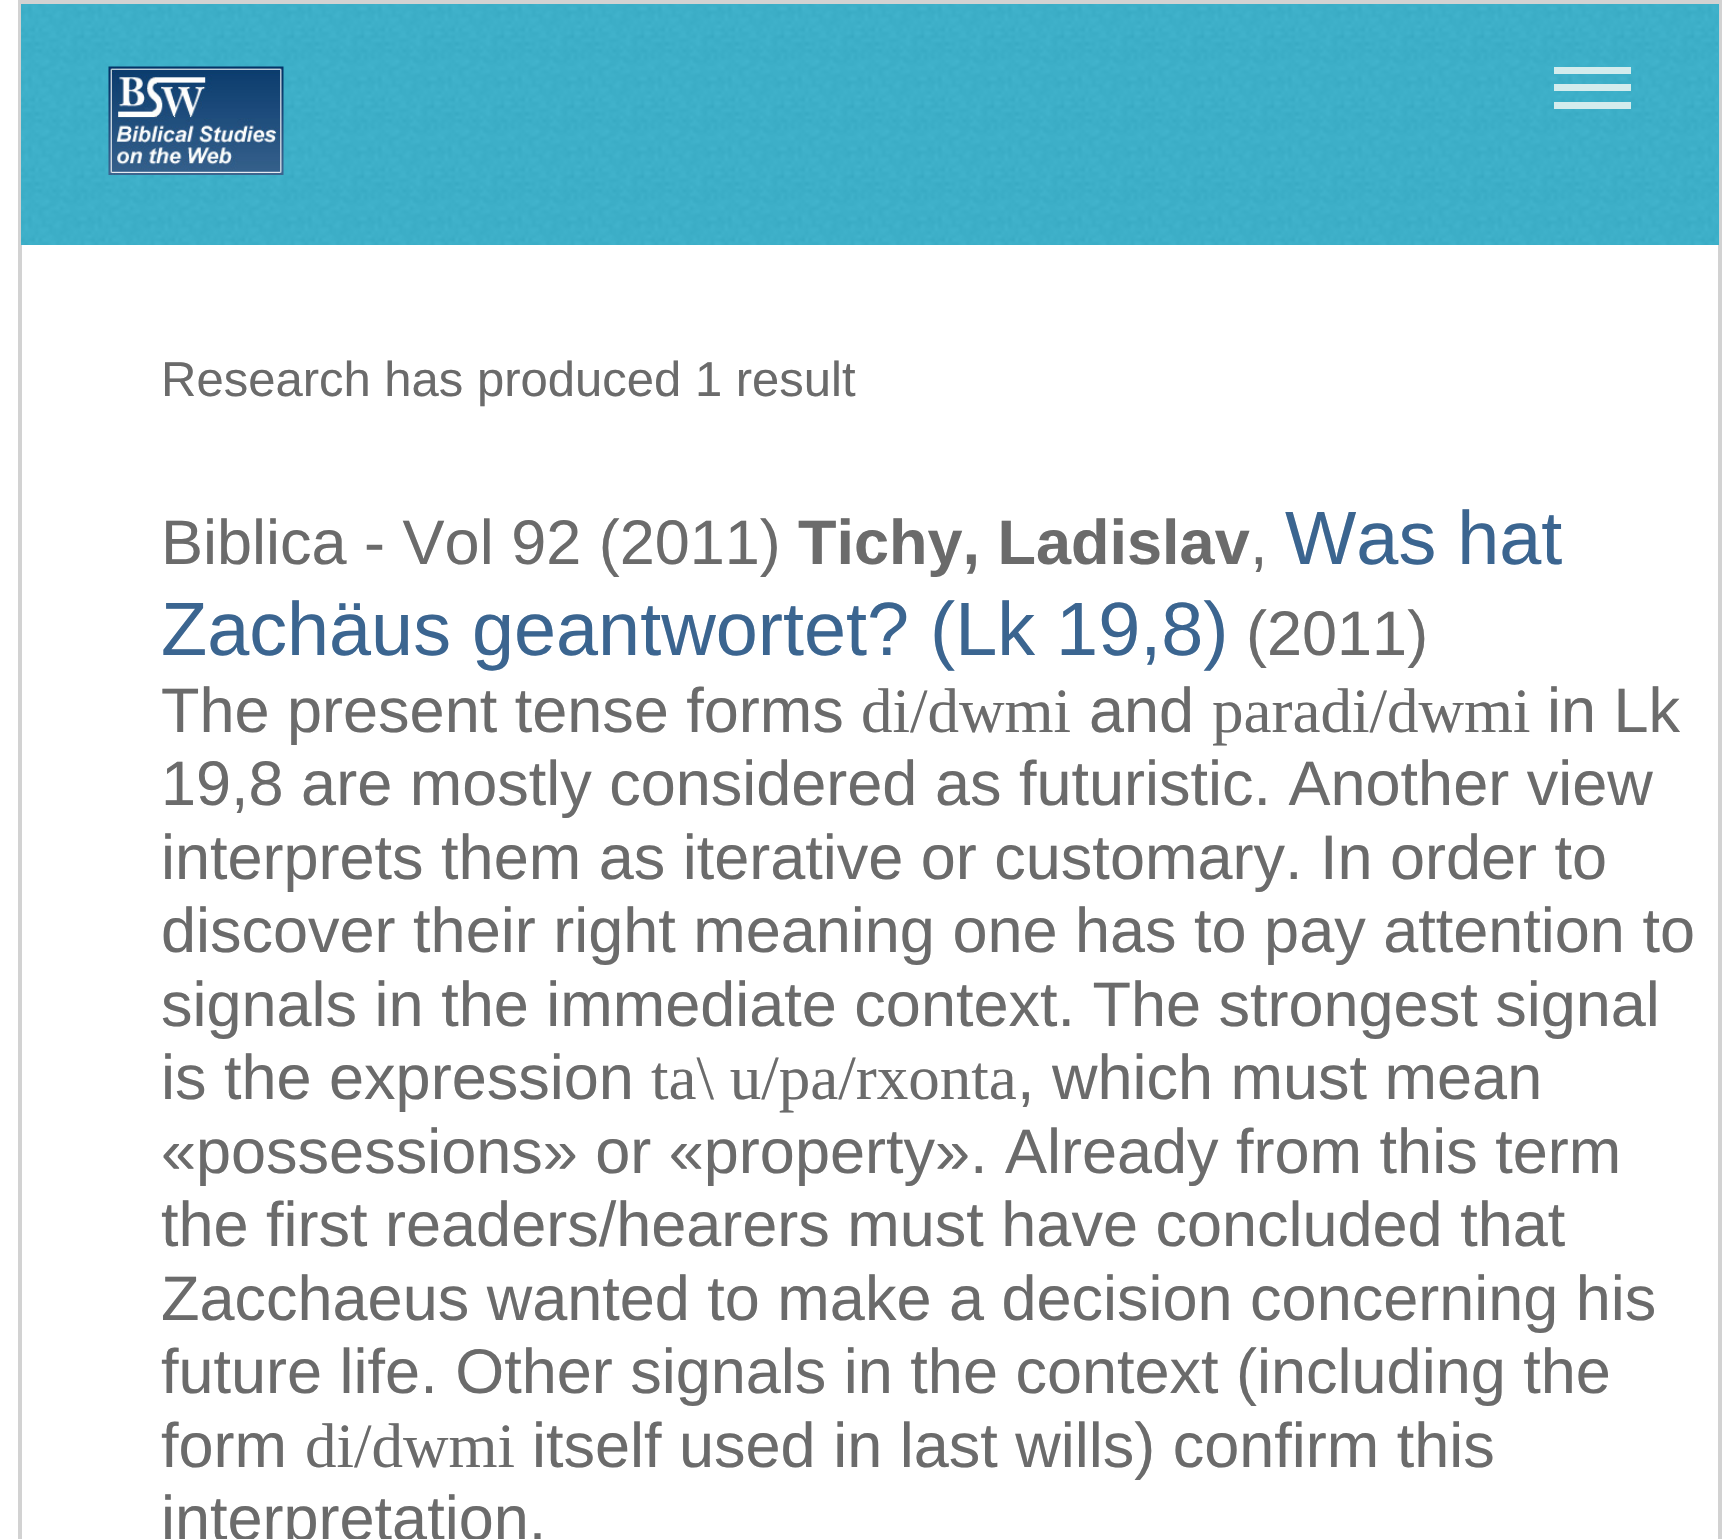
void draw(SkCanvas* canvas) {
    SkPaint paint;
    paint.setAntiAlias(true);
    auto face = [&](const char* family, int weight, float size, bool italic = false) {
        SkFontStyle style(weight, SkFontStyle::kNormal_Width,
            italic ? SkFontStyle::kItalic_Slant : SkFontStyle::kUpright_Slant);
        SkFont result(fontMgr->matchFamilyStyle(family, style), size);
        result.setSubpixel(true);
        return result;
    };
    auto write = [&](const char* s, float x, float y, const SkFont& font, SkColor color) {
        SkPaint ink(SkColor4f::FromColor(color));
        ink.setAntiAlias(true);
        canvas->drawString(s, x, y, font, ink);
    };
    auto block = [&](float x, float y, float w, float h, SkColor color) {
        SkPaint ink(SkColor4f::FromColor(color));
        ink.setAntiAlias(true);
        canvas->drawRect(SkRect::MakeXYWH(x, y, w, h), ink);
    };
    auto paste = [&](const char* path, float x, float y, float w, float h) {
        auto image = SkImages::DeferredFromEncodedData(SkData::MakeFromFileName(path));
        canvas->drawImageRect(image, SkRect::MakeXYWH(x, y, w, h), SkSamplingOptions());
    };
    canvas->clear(SK_ColorWHITE);
    paint.setStyle(SkPaint::kStroke_Style);
    paint.setStrokeWidth(4);
    paint.setColor(SkColorSetRGB(210, 210, 210));
    canvas->drawRect(SkRect::MakeXYWH(20, 2, 1700, 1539), paint);
    block(21, 4, 1698, 241, SkColorSetRGB(57, 177, 204));
    paste("pic1.png", 21, 4, 1697, 241);
    paste("pic2.png", 108, 66, 176, 109);
    block(1554, 67, 77, 7, SkColorSetRGB(211, 236, 237));
    block(1554, 84, 77, 7, SkColorSetRGB(211, 236, 237));
    block(1554, 102, 77, 7, SkColorSetRGB(211, 236, 237));
    auto kFont1 = face("Liberation Sans", 400, 49);
    write("Research has produced 1 result", 161, 396, kFont1, SkColorSetRGB(107, 107, 107));
    auto kFont2 = face("Liberation Sans", 400, 63);
    write("Biblica - Vol 92 (2011)", 161, 564, kFont2, SkColorSetRGB(107, 107, 107));
    auto kFont3 = face("Liberation Sans", 700, 63);
    write("Tichy, Ladislav", 798, 564, kFont3, SkColorSetRGB(107, 107, 107));
    write(",", 1250, 564, kFont2, SkColorSetRGB(107, 107, 107));
    auto kFont4 = face("Liberation Sans", 400, 75.6f);
    write("Was hat", 1285, 564, kFont4, SkColorSetRGB(59, 101, 144));
    write("Zachäus geantwortet? (Lk 19,8)", 161, 655, kFont4, SkColorSetRGB(59, 101, 144));
    write("(2011)", 1246, 655, kFont2, SkColorSetRGB(107, 107, 107));
    write("The present tense forms", 161, 732, kFont2, SkColorSetRGB(107, 107, 107));
    auto kFont5 = face("Liberation Serif", 400, 63);
    write("di/dwmi", 861, 732, kFont5, SkColorSetRGB(107, 107, 107));
    write("and", 1089, 732, kFont2, SkColorSetRGB(107, 107, 107));
    write("paradi/dwmi", 1212, 732, kFont5, SkColorSetRGB(107, 107, 107));
    write("in Lk", 1547, 732, kFont2, SkColorSetRGB(107, 107, 107));
    write("19,8 are mostly considered as futuristic. Another view", 161, 805, kFont2, SkColorSetRGB(107, 107, 107));
    write("interprets them as iterative or customary. In order to", 161, 879, kFont2, SkColorSetRGB(107, 107, 107));
    write("discover their right meaning one has to pay attention to", 161, 952, kFont2, SkColorSetRGB(107, 107, 107));
    write("signals in the immediate context. The strongest signal", 161, 1026, kFont2, SkColorSetRGB(107, 107, 107));
    write("is the expression", 161, 1099, kFont2, SkColorSetRGB(107, 107, 107));
    write("ta\\ u/pa/rxonta", 651, 1099, kFont5, SkColorSetRGB(107, 107, 107));
    write(", which must mean", 1017, 1099, kFont2, SkColorSetRGB(107, 107, 107));
    write("«possessions» or «property». Already from this term", 161, 1173, kFont2, SkColorSetRGB(107, 107, 107));
    write("the first readers/hearers must have concluded that", 161, 1246, kFont2, SkColorSetRGB(107, 107, 107));
    write("Zacchaeus wanted to make a decision concerning his", 161, 1320, kFont2, SkColorSetRGB(107, 107, 107));
    write("future life. Other signals in the context (including the", 161, 1393, kFont2, SkColorSetRGB(107, 107, 107));
    write("form", 161, 1467, kFont2, SkColorSetRGB(107, 107, 107));
    write("di/dwmi", 305, 1467, kFont5, SkColorSetRGB(107, 107, 107));
    write("itself used in last wills) confirm this", 532, 1467, kFont2, SkColorSetRGB(107, 107, 107));
    write("interpretation.", 161, 1540, kFont2, SkColorSetRGB(107, 107, 107));
}
